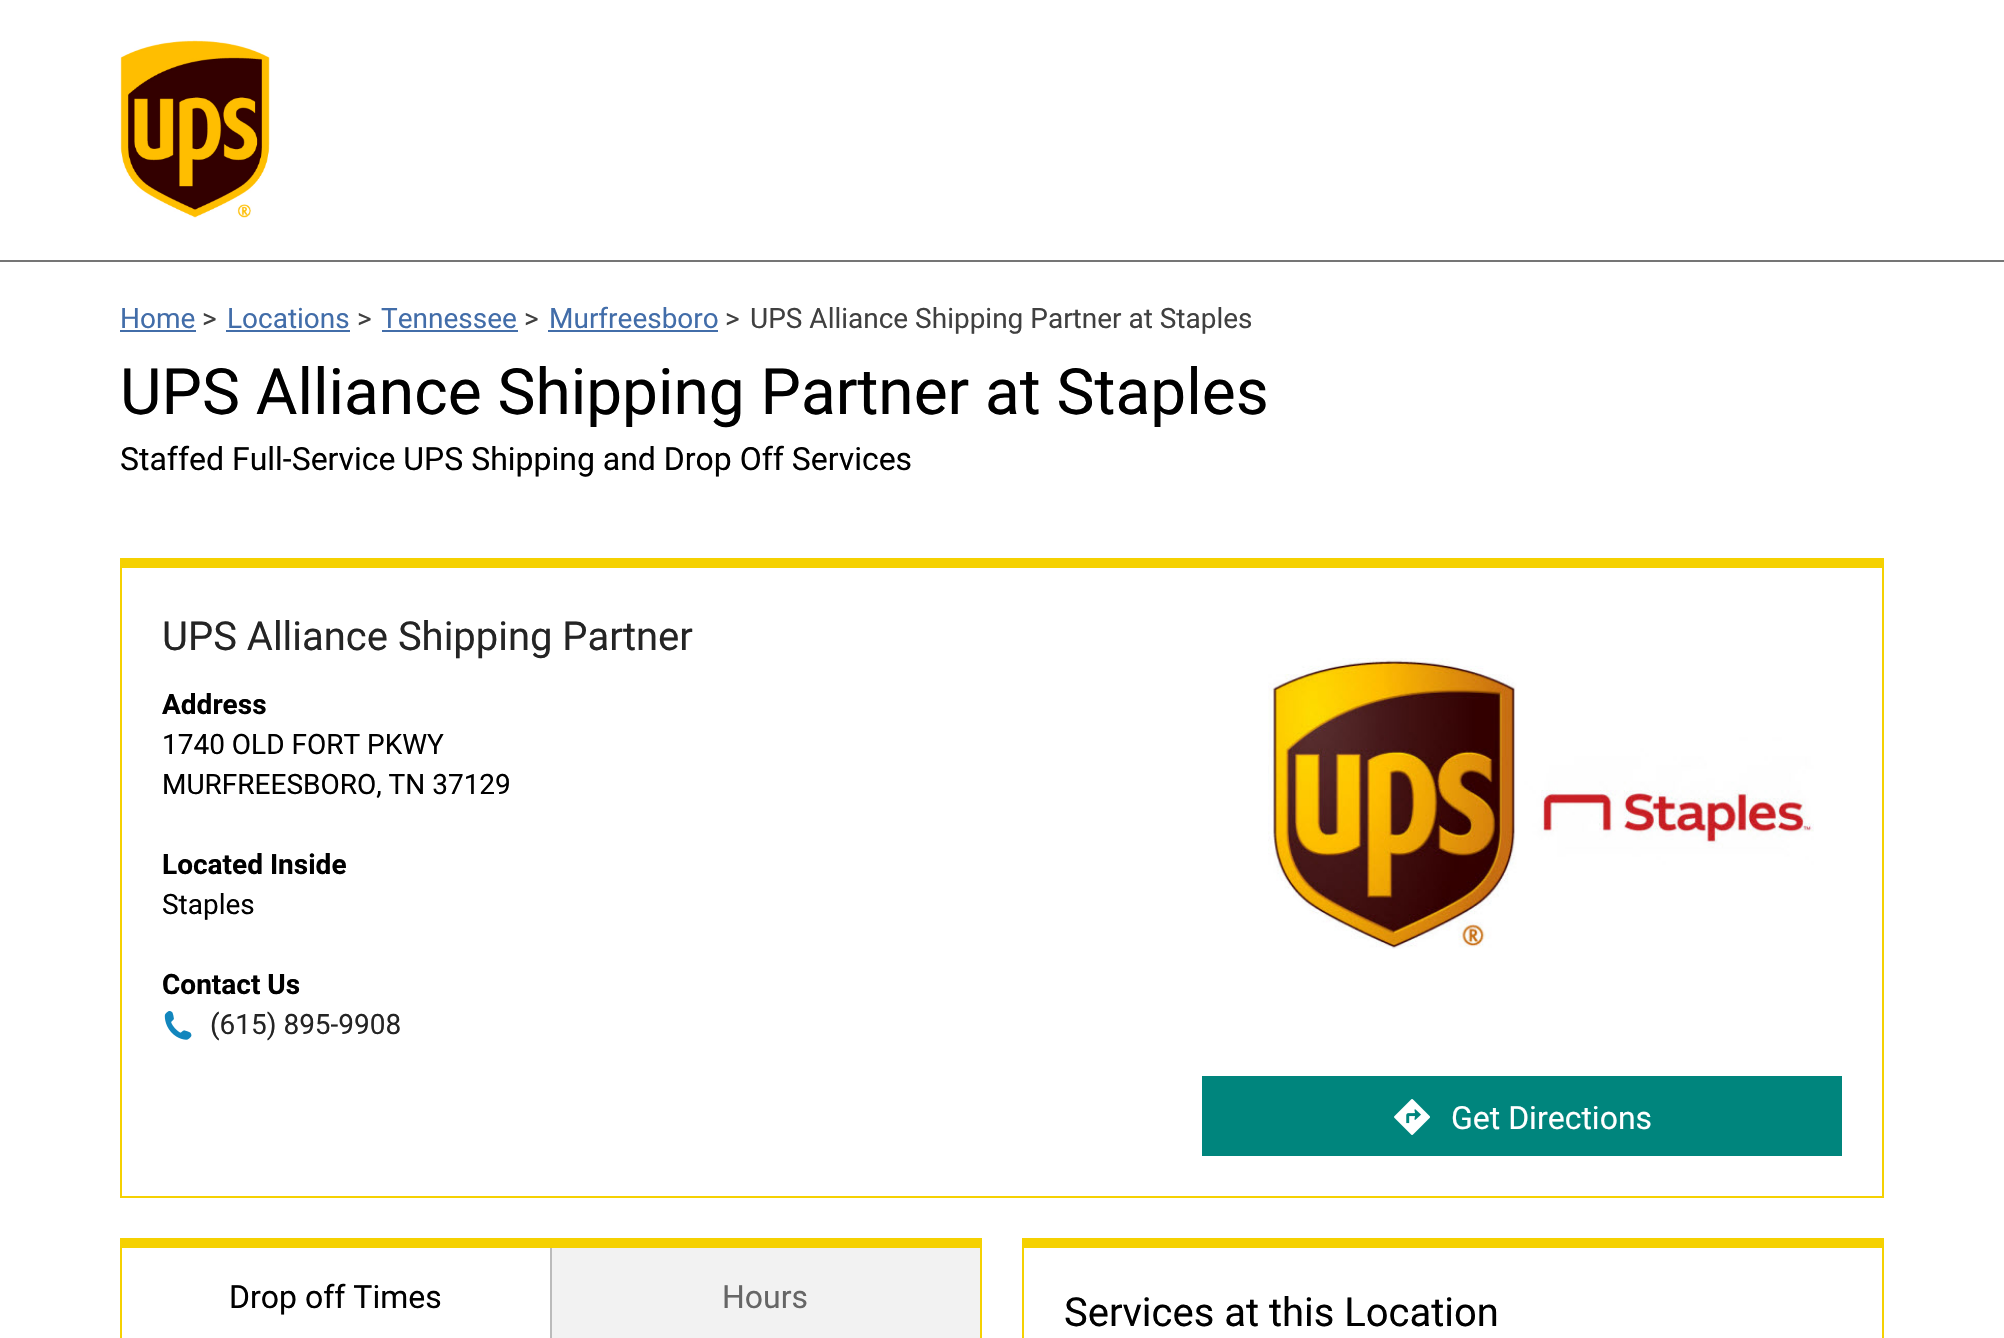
void draw(SkCanvas* canvas) {
    SkPaint paint;
    paint.setAntiAlias(true);
    auto face = [&](const char* family, int weight, float size, bool italic = false) {
        SkFontStyle style(weight, SkFontStyle::kNormal_Width,
            italic ? SkFontStyle::kItalic_Slant : SkFontStyle::kUpright_Slant);
        SkFont result(fontMgr->matchFamilyStyle(family, style), size);
        result.setSubpixel(true);
        return result;
    };
    auto write = [&](const char* s, float x, float y, const SkFont& font, SkColor color) {
        SkPaint ink(SkColor4f::FromColor(color));
        ink.setAntiAlias(true);
        canvas->drawString(s, x, y, font, ink);
    };
    auto block = [&](float x, float y, float w, float h, SkColor color) {
        SkPaint ink(SkColor4f::FromColor(color));
        ink.setAntiAlias(true);
        canvas->drawRect(SkRect::MakeXYWH(x, y, w, h), ink);
    };
    auto paste = [&](const char* path, float x, float y, float w, float h) {
        auto image = SkImages::DeferredFromEncodedData(SkData::MakeFromFileName(path));
        canvas->drawImageRect(image, SkRect::MakeXYWH(x, y, w, h), SkSamplingOptions());
    };
    canvas->clear(SK_ColorWHITE);
    block(0, 260, 2004, 2, SkColorSetRGB(117, 117, 117));
    paste("pic1.png", 120, 40, 150, 178);
    auto kFont1 = face("Roboto", 400, 28);
    write("Home", 120, 328, kFont1, SkColorSetRGB(66, 109, 169));
    block(120, 330, 76, 2, SkColorSetRGB(66, 109, 169));
    write(">", 202, 328, kFont1, SkColorSetRGB(64, 64, 64));
    write("Locations", 227, 328, kFont1, SkColorSetRGB(66, 109, 169));
    block(226, 330, 124, 2, SkColorSetRGB(66, 109, 169));
    write(">", 357, 328, kFont1, SkColorSetRGB(64, 64, 64));
    write("Tennessee", 381, 328, kFont1, SkColorSetRGB(66, 109, 169));
    block(382, 330, 136, 2, SkColorSetRGB(66, 109, 169));
    write(">", 524, 328, kFont1, SkColorSetRGB(64, 64, 64));
    write("Murfreesboro", 549, 328, kFont1, SkColorSetRGB(66, 109, 169));
    block(548, 330, 170, 2, SkColorSetRGB(66, 109, 169));
    write(">", 725, 328, kFont1, SkColorSetRGB(64, 64, 64));
    write("UPS Alliance Shipping Partner at Staples", 750, 328, kFont1, SkColorSetRGB(64, 64, 64));
    auto kFont2 = face("Roboto", 400, 64);
    write("UPS Alliance Shipping Partner at Staples", 120, 414, kFont2, SK_ColorBLACK);
    auto kFont3 = face("Roboto", 400, 32);
    write("Staffed Full-Service UPS Shipping and Drop Off Services", 120, 470, kFont3, SK_ColorBLACK);
    block(122, 558, 1760, 10, SkColorSetRGB(245, 209, 1));
    block(1882, 558, 2, 640, SkColorSetRGB(245, 209, 1));
    block(120, 1196, 1764, 2, SkColorSetRGB(245, 209, 1));
    block(120, 558, 2, 640, SkColorSetRGB(245, 209, 1));
    auto kFont4 = face("Roboto", 400, 40);
    write("UPS Alliance Shipping Partner", 162, 650, kFont4, SkColorSetRGB(36, 36, 36));
    auto kFont5 = face("Roboto", 700, 28);
    write("Address", 162, 714, kFont5, SK_ColorBLACK);
    write("1740 OLD FORT PKWY", 162, 754, kFont1, SK_ColorBLACK);
    write("MURFREESBORO, TN 37129", 162, 794, kFont1, SK_ColorBLACK);
    paste("pic2.png", 1268, 658, 546, 291);
    write("Located Inside", 162, 874, kFont5, SK_ColorBLACK);
    write("Staples", 162, 914, kFont1, SK_ColorBLACK);
    write("Contact Us", 162, 994, kFont5, SK_ColorBLACK);
    paste("pic3.png", 164, 1011, 28, 29);
    write("(615) 895-9908", 210, 1034, kFont1, SkColorSetRGB(36, 36, 36));
    block(1202, 1076, 640, 80, SkColorSetRGB(0, 133, 125));
    paste("pic4.png", 1394, 1099, 36, 36);
    write("Get Directions", 1451, 1129, kFont3, SK_ColorWHITE);
    block(122, 1238, 858, 10, SkColorSetRGB(245, 209, 1));
    block(980, 1238, 2, 100, SkColorSetRGB(245, 209, 1));
    block(120, 1238, 2, 100, SkColorSetRGB(245, 209, 1));
    block(550, 1248, 2, 90, SkColorSetRGB(187, 187, 187));
    write("Drop off Times", 229, 1308, kFont3, SK_ColorBLACK);
    block(552, 1248, 428, 90, SkColorSetRGB(242, 242, 242));
    write("Hours", 722, 1308, kFont3, SkColorSetRGB(102, 102, 102));
    block(1024, 1238, 858, 10, SkColorSetRGB(245, 209, 1));
    block(1882, 1238, 2, 100, SkColorSetRGB(245, 209, 1));
    block(1022, 1238, 2, 100, SkColorSetRGB(245, 209, 1));
    write("Services at this Location", 1064, 1326, kFont4, SK_ColorBLACK);
}
